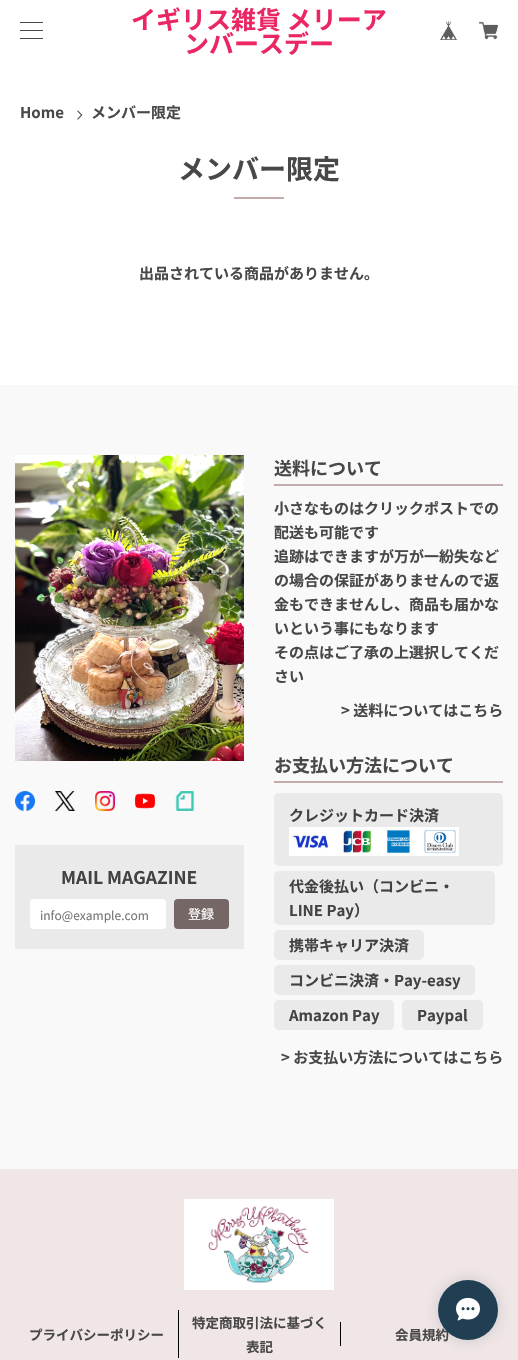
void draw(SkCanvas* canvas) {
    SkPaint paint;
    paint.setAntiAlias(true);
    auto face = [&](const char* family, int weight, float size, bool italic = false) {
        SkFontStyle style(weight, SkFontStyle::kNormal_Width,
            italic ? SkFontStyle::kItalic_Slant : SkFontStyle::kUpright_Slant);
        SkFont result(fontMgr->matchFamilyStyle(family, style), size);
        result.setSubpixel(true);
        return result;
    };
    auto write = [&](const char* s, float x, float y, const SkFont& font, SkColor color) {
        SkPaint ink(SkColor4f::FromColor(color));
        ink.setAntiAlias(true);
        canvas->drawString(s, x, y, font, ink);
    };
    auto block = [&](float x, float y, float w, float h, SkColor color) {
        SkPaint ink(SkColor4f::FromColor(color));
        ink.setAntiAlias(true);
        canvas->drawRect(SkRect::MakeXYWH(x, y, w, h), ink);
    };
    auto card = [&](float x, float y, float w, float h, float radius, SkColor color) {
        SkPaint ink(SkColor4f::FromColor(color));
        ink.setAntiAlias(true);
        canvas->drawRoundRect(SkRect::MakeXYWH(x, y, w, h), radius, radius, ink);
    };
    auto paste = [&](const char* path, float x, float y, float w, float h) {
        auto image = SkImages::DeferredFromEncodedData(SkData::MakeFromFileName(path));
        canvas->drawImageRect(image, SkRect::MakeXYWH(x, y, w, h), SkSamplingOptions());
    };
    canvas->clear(SK_ColorWHITE);
    block(20, 22, 23, 1, SkColorSetRGB(72, 72, 72));
    block(20, 30, 23, 1, SkColorSetRGB(72, 72, 72));
    block(20, 38, 23, 1, SkColorSetRGB(72, 72, 72));
    auto kFont1 = face("Noto Sans JP", 700, 25);
    write("イギリス雑貨 メリーア", 131, 29, kFont1, SkColorSetRGB(234, 39, 99));
    write("ンバースデー", 184, 53, kFont1, SkColorSetRGB(234, 39, 99));
    paste("pic1.png", 440, 21, 18, 19);
    paste("pic2.png", 479, 21, 19, 19);
    auto kFont2 = face("Noto Sans JP", 700, 15);
    write("Home", 20, 118, kFont2, SkColorSetRGB(72, 72, 72));
    paint.setColor(SkColorSetRGB(72, 72, 72));
    canvas->drawPath(SkPathBuilder().moveTo(77.5f, 110).lineTo(82.5f, 115).lineTo(81, 115).lineTo(77.5f, 111.5f).close().moveTo(82.5f, 115).lineTo(77.5f, 120).lineTo(77.5f, 118.5f).lineTo(81, 115).close().detach(), paint);
    write("メンバー限定", 91, 118, kFont2, SkColorSetRGB(72, 72, 72));
    auto kFont3 = face("Noto Sans JP", 700, 27);
    write("メンバー限定", 178, 179, kFont3, SkColorSetRGB(72, 72, 72));
    block(234, 197, 50, 2, SkColorSetRGB(195, 172, 172));
    write("出品されている商品がありません。", 139, 279, kFont2, SkColorSetRGB(72, 72, 72));
    block(0, 385, 518, 784, SkColorSetRGB(249, 249, 249));
    paste("pic3.png", 15, 455, 229, 306);
    paste("pic4.png", 15, 791, 20, 20);
    paste("pic5.png", 55, 791, 20, 20);
    paste("pic6.png", 95, 791, 20, 20);
    paste("pic7.png", 135, 793, 20, 16);
    paste("pic8.png", 175, 791, 20, 20);
    block(15, 845, 229, 104, SkColorSetRGB(234, 234, 234));
    auto kFont4 = face("Noto Sans JP", 700, 17.5f);
    write("MAIL MAGAZINE", 61, 884, kFont4, SkColorSetRGB(66, 66, 66));
    card(30, 899, 136, 30, 4, SK_ColorWHITE);
    auto kFont5 = face("Noto Sans JP", 400, 12);
    write("info@example.com", 40, 920, kFont5, SkColorSetRGB(117, 117, 117));
    card(174, 899, 55, 30, 4, SkColorSetRGB(118, 103, 103));
    auto kFont6 = face("Noto Sans JP", 400, 13);
    write("登録", 188, 919, kFont6, SK_ColorWHITE);
    block(274, 484, 229, 2, SkColorSetRGB(195, 172, 172));
    auto kFont7 = face("Noto Sans JP", 700, 18);
    write("送料について", 274, 475, kFont7, SkColorSetRGB(72, 72, 72));
    write("小さなものはクリックポストでの", 274, 514, kFont2, SkColorSetRGB(72, 72, 72));
    write("配送も可能です", 274, 538, kFont2, SkColorSetRGB(72, 72, 72));
    write("追跡はできますが万が一紛失など", 274, 562, kFont2, SkColorSetRGB(72, 72, 72));
    write("の場合の保証がありませんので返", 274, 586, kFont2, SkColorSetRGB(72, 72, 72));
    write("金もできませんし、商品も届かな", 274, 610, kFont2, SkColorSetRGB(72, 72, 72));
    write("いという事にもなります", 274, 634, kFont2, SkColorSetRGB(72, 72, 72));
    write("その点はご了承の上選択してくだ", 274, 658, kFont2, SkColorSetRGB(72, 72, 72));
    write("さい", 274, 682, kFont2, SkColorSetRGB(72, 72, 72));
    write("> 送料についてはこちら", 341, 716, kFont2, SkColorSetRGB(72, 72, 72));
    block(274, 781, 229, 2, SkColorSetRGB(195, 172, 172));
    write("お支払い方法について", 274, 772, kFont7, SkColorSetRGB(72, 72, 72));
    card(274, 793, 229, 73, 5, SkColorSetRGB(234, 234, 234));
    write("クレジットカード決済", 289, 821, kFont2, SkColorSetRGB(66, 66, 66));
    paste("pic9.png", 289, 827, 170, 29);
    card(274, 871, 221, 54, 5, SkColorSetRGB(234, 234, 234));
    write("代金後払い（コンビニ・", 289, 892, kFont2, SkColorSetRGB(66, 66, 66));
    write("LINE Pay）", 289, 916, kFont2, SkColorSetRGB(66, 66, 66));
    card(274, 930, 150, 30, 5, SkColorSetRGB(234, 234, 234));
    write("携帯キャリア決済", 289, 951, kFont2, SkColorSetRGB(66, 66, 66));
    card(274, 965, 201, 30, 5, SkColorSetRGB(234, 234, 234));
    write("コンビニ決済・Pay-easy", 289, 986, kFont2, SkColorSetRGB(66, 66, 66));
    card(274, 1000, 120, 30, 5, SkColorSetRGB(234, 234, 234));
    write("Amazon Pay", 289, 1021, kFont2, SkColorSetRGB(66, 66, 66));
    card(402, 1000, 81, 30, 5, SkColorSetRGB(234, 234, 234));
    write("Paypal", 417, 1021, kFont2, SkColorSetRGB(66, 66, 66));
    write("> お支払い方法についてはこちら", 281, 1063, kFont2, SkColorSetRGB(72, 72, 72));
    block(0, 1169, 518, 191, SkColorSetRGB(240, 230, 230));
    paste("pic10.png", 184, 1199, 150, 91);
    auto kFont8 = face("Noto Sans JP", 700, 13.5f);
    write("プライバシーポリシー", 29, 1340, kFont8, SkColorSetRGB(72, 72, 72));
    block(178, 1310, 1, 48, SK_ColorBLACK);
    write("特定商取引法に基づく", 192, 1328, kFont8, SkColorSetRGB(72, 72, 72));
    write("表記", 246, 1352, kFont8, SkColorSetRGB(72, 72, 72));
    block(340, 1322, 1, 24, SK_ColorBLACK);
    write("会員規約", 395, 1340, kFont8, SkColorSetRGB(72, 72, 72));
    paint.setColor(SkColorSetARGB(51, 51, 66, 88));
    paint.setMaskFilter(SkMaskFilter::MakeBlur(kNormal_SkBlurStyle, 7.5f));
    canvas->drawRoundRect(SkRect::MakeXYWH(438, 1280, 60, 60), 30, 30, paint);
    paint.setMaskFilter(nullptr);
    paint.setColor(SkColorSetRGB(33, 63, 82));
    canvas->drawCircle(468, 1310, 30, paint);
    paste("pic11.png", 456, 1297, 24, 24);
}
